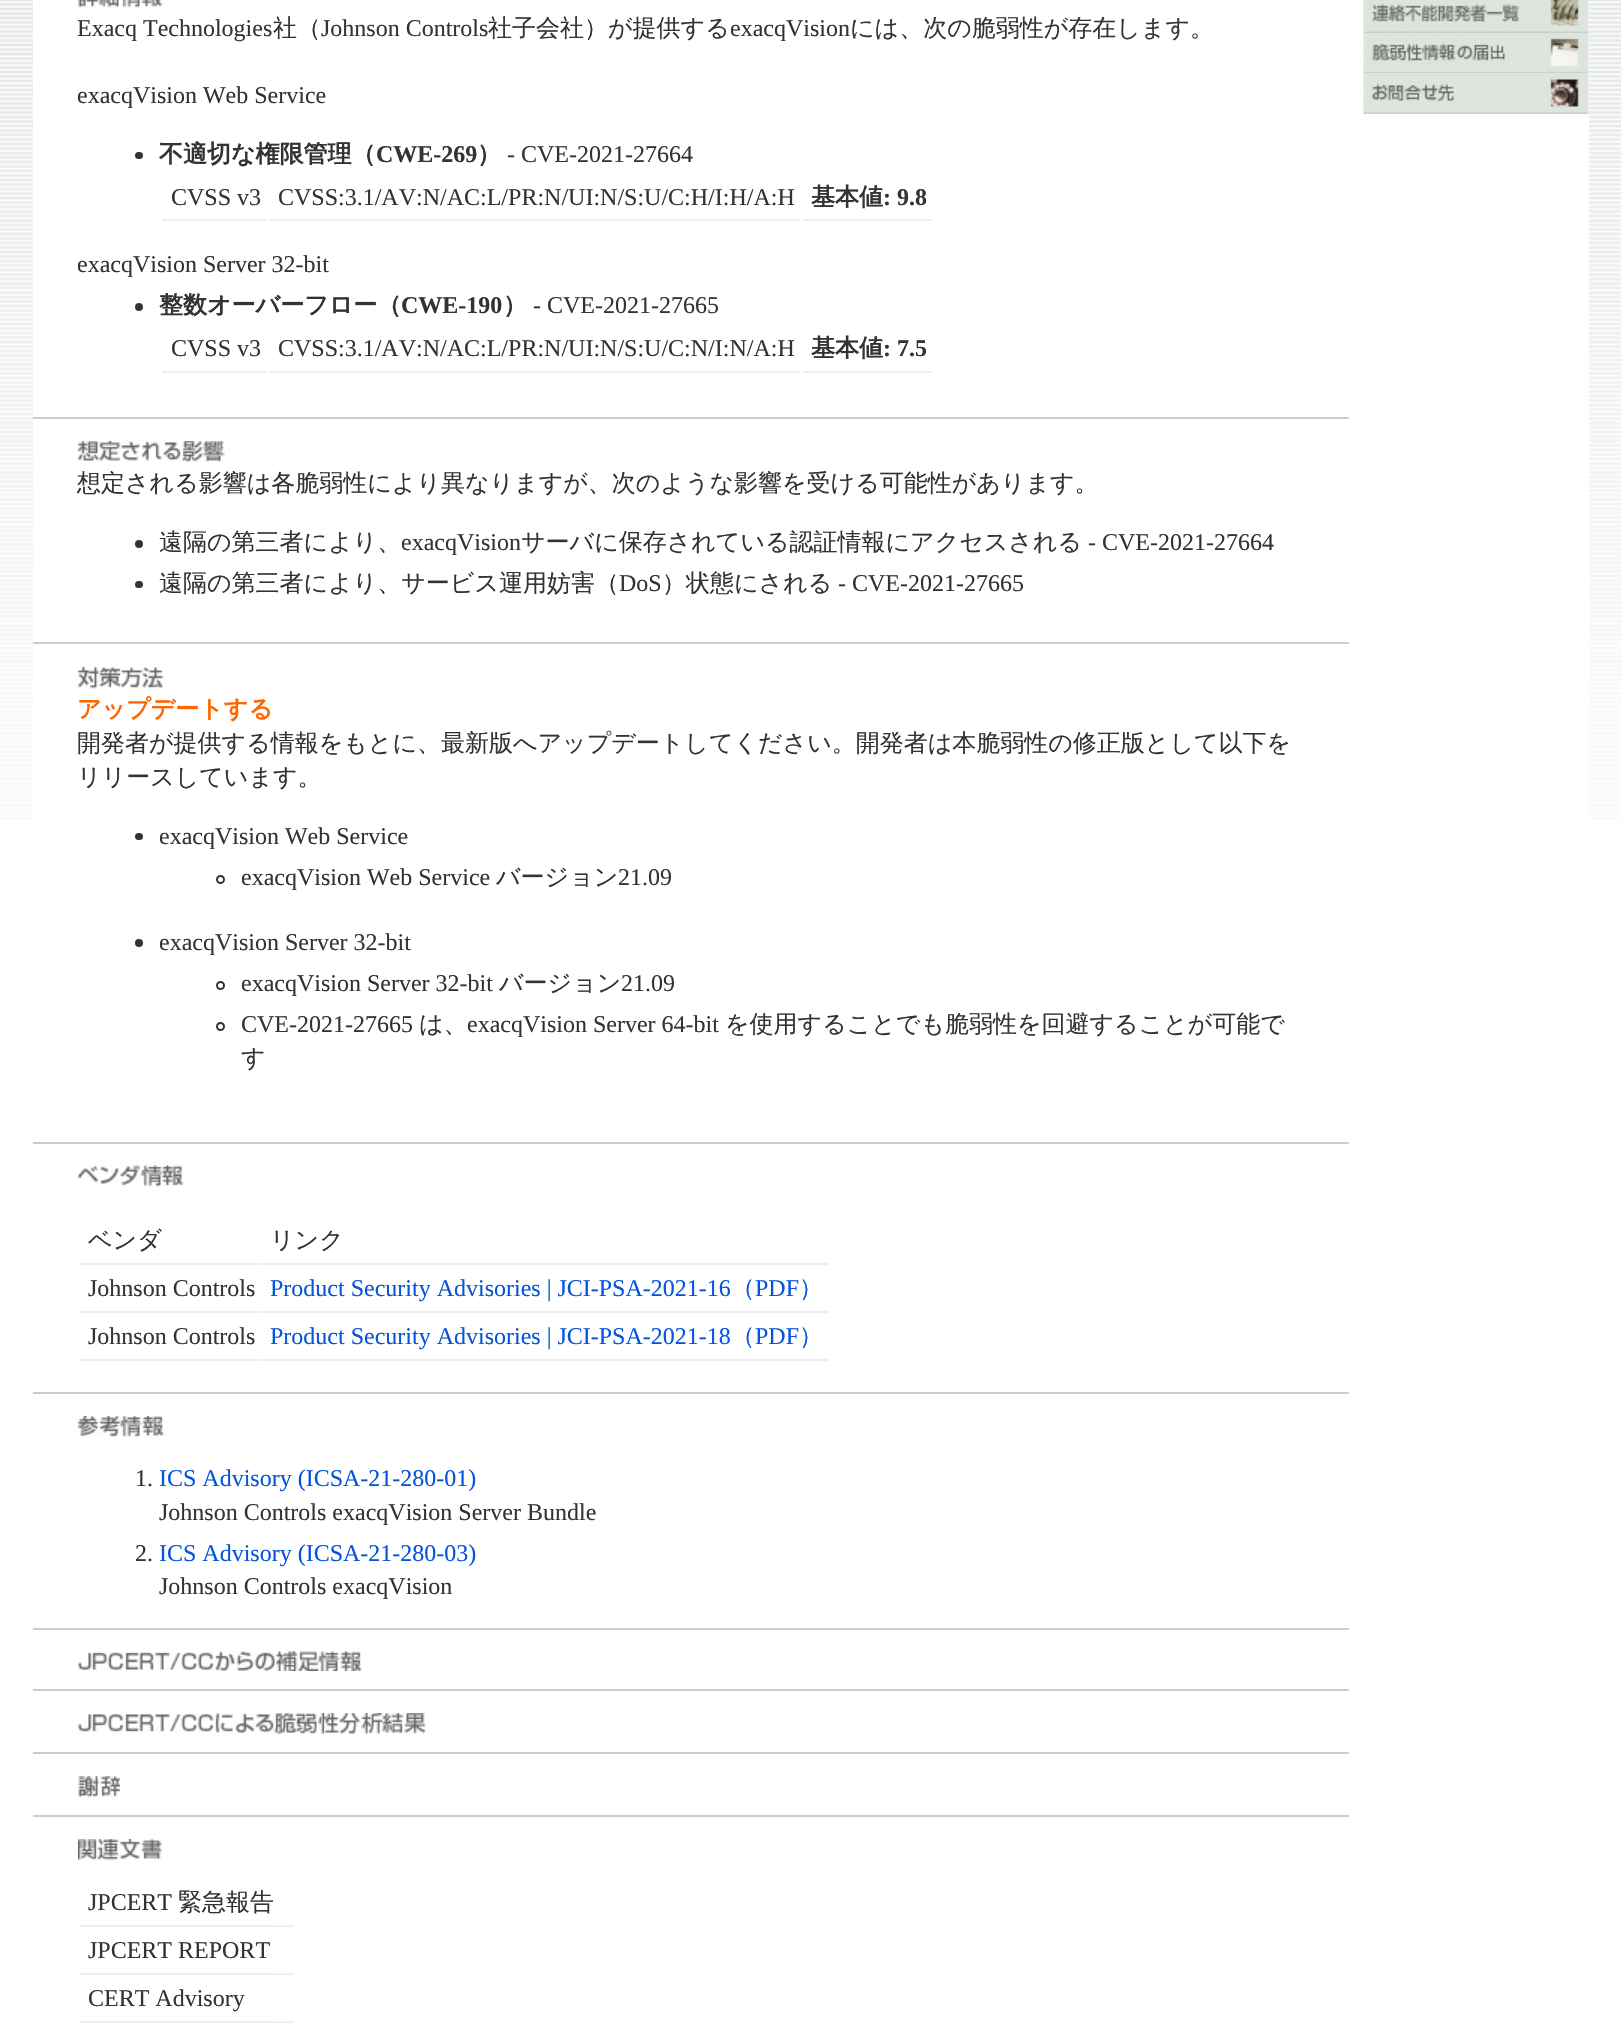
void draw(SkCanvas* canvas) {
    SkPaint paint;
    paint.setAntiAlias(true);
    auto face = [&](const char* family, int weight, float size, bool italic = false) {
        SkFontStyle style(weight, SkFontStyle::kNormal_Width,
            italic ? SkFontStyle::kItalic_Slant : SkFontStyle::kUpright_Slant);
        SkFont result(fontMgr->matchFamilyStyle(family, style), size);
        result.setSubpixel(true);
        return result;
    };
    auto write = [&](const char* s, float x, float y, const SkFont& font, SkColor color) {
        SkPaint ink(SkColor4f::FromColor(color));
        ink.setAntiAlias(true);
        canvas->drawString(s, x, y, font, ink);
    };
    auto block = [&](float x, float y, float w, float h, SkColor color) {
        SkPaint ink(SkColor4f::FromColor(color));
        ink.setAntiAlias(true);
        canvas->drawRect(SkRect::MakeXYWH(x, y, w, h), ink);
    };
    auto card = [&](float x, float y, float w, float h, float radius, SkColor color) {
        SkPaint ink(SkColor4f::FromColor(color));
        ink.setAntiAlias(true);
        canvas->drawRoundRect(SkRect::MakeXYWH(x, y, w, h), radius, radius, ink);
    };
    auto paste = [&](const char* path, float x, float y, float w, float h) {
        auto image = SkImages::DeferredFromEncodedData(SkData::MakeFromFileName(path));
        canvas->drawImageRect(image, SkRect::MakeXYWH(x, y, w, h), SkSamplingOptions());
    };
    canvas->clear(SK_ColorWHITE);
    paste("pic1.png", 0, 0, 1621, 820);
    block(33, 0, 1556, 820, SK_ColorWHITE);
    paste("pic2.png", 78, 0, 85, 8);
    auto kFont1 = face("Liberation Serif", 400, 24);
    write("Exacq Technologies", 77, 36, kFont1, SkColorSetRGB(51, 51, 51));
    auto kFont2 = face("WenQuanYi Zen Hei", 500, 24);
    write("社（", 273, 36, kFont2, SkColorSetRGB(51, 51, 51));
    write("Johnson Controls", 321, 36, kFont1, SkColorSetRGB(51, 51, 51));
    write("社子会社）が提供する", 488, 36, kFont2, SkColorSetRGB(51, 51, 51));
    write("exacqVision", 730, 36, kFont1, SkColorSetRGB(51, 51, 51));
    write("には、次の脆弱性が存在します。", 850, 36, kFont2, SkColorSetRGB(51, 51, 51));
    write("exacqVision Web Service", 77, 103, kFont1, SkColorSetRGB(51, 51, 51));
    card(135, 152, 8, 7, 3.5f, SkColorSetRGB(51, 51, 51));
    auto kFont3 = face("WenQuanYi Zen Hei", 700, 24);
    write("不適切な権限管理（", 159, 162, kFont3, SkColorSetRGB(51, 51, 51));
    auto kFont4 = face("Liberation Serif", 700, 24);
    write("CWE-269", 376, 162, kFont4, SkColorSetRGB(51, 51, 51));
    write("）", 477, 162, kFont3, SkColorSetRGB(51, 51, 51));
    write("- CVE-2021-27664", 507, 162, kFont1, SkColorSetRGB(51, 51, 51));
    block(162, 219, 104, 2, SkColorSetRGB(238, 238, 238));
    write("CVSS v3", 171, 205, kFont1, SkColorSetRGB(51, 51, 51));
    block(269, 219, 531, 2, SkColorSetRGB(238, 238, 238));
    write("CVSS:3.1/AV:N/AC:L/PR:N/UI:N/S:U/C:H/I:H/A:H", 278, 205, kFont1, SkColorSetRGB(51, 51, 51));
    block(803, 219, 129, 2, SkColorSetRGB(238, 238, 238));
    write("基本値", 811, 205, kFont3, SkColorSetRGB(51, 51, 51));
    write(": 9.8", 883, 205, kFont4, SkColorSetRGB(51, 51, 51));
    write("exacqVision Server 32-bit", 77, 272, kFont1, SkColorSetRGB(51, 51, 51));
    paint.setColor(SkColorSetRGB(51, 51, 51));
    canvas->drawCircle(139, 307, 4, paint);
    write("整数オーバーフロー（", 159, 313, kFont3, SkColorSetRGB(51, 51, 51));
    write("CWE-190", 401, 313, kFont4, SkColorSetRGB(51, 51, 51));
    write("）", 503, 313, kFont3, SkColorSetRGB(51, 51, 51));
    write("- CVE-2021-27665", 533, 313, kFont1, SkColorSetRGB(51, 51, 51));
    block(162, 371, 104, 2, SkColorSetRGB(238, 238, 238));
    write("CVSS v3", 171, 356, kFont1, SkColorSetRGB(51, 51, 51));
    block(269, 371, 531, 2, SkColorSetRGB(238, 238, 238));
    write("CVSS:3.1/AV:N/AC:L/PR:N/UI:N/S:U/C:N/I:N/A:H", 278, 356, kFont1, SkColorSetRGB(51, 51, 51));
    block(803, 371, 129, 2, SkColorSetRGB(238, 238, 238));
    write("基本値", 811, 356, kFont3, SkColorSetRGB(51, 51, 51));
    write(": 7.5", 883, 356, kFont4, SkColorSetRGB(51, 51, 51));
    block(33, 417, 1316, 2, SkColorSetRGB(204, 204, 204));
    paste("pic3.png", 78, 441, 147, 21);
    write("想定される影響は各脆弱性により異なりますが、次のような影響を受ける可能性があります。", 77, 491, kFont2, SkColorSetRGB(51, 51, 51));
    canvas->drawCircle(139, 544, 4, paint);
    write("遠隔の第三者により、", 159, 550, kFont2, SkColorSetRGB(51, 51, 51));
    write("exacqVision", 401, 550, kFont1, SkColorSetRGB(51, 51, 51));
    write("サーバに保存されている認証情報にアクセスされる", 521, 550, kFont2, SkColorSetRGB(51, 51, 51));
    write("- CVE-2021-27664", 1088, 550, kFont1, SkColorSetRGB(51, 51, 51));
    card(135, 581, 8, 7, 3.5f, SkColorSetRGB(51, 51, 51));
    write("遠隔の第三者により、サービス運用妨害（", 159, 591, kFont2, SkColorSetRGB(51, 51, 51));
    write("DoS", 619, 591, kFont1, SkColorSetRGB(51, 51, 51));
    write("）状態にされる", 662, 591, kFont2, SkColorSetRGB(51, 51, 51));
    write("- CVE-2021-27665", 838, 591, kFont1, SkColorSetRGB(51, 51, 51));
    block(33, 642, 1316, 2, SkColorSetRGB(204, 204, 204));
    paste("pic4.png", 78, 666, 86, 23);
    write("アップデートする", 77, 717, kFont3, SkColorSetRGB(255, 102, 0));
    write("開発者が提供する情報をもとに、最新版へアップデートしてください。開発者は本脆弱性の修正版として以下を", 77, 751, kFont2, SkColorSetRGB(51, 51, 51));
    write("リリースしています。", 77, 785, kFont2, SkColorSetRGB(51, 51, 51));
    card(135, 833, 8, 7, 3.5f, SkColorSetRGB(51, 51, 51));
    write("exacqVision Web Service", 159, 844, kFont1, SkColorSetRGB(51, 51, 51));
    paint.setStyle(SkPaint::kStroke_Style);
    paint.setStrokeWidth(2);
    canvas->drawCircle(220.5f, 879.5f, 3.5f, paint);
    write("exacqVision Web Service", 241, 885, kFont1, SkColorSetRGB(51, 51, 51));
    write("バージョン", 496, 885, kFont2, SkColorSetRGB(51, 51, 51));
    write("21.09", 618, 885, kFont1, SkColorSetRGB(51, 51, 51));
    paint.setStyle(SkPaint::kFill_Style);
    canvas->drawCircle(139, 943, 4, paint);
    write("exacqVision Server 32-bit", 159, 950, kFont1, SkColorSetRGB(51, 51, 51));
    paint.setStyle(SkPaint::kStroke_Style);
    canvas->drawCircle(220.5f, 985.5f, 3.5f, paint);
    write("exacqVision Server 32-bit", 241, 991, kFont1, SkColorSetRGB(51, 51, 51));
    write("バージョン", 499, 991, kFont2, SkColorSetRGB(51, 51, 51));
    write("21.09", 621, 991, kFont1, SkColorSetRGB(51, 51, 51));
    canvas->drawCircle(220.5f, 1026.5f, 3.5f, paint);
    write("CVE-2021-27665", 241, 1032, kFont1, SkColorSetRGB(51, 51, 51));
    write("は、", 419, 1032, kFont2, SkColorSetRGB(51, 51, 51));
    write("exacqVision Server 64-bit", 467, 1032, kFont1, SkColorSetRGB(51, 51, 51));
    write("を使用することでも脆弱性を回避することが可能で", 725, 1032, kFont2, SkColorSetRGB(51, 51, 51));
    write("す", 241, 1066, kFont2, SkColorSetRGB(51, 51, 51));
    block(33, 1142, 1316, 2, SkColorSetRGB(204, 204, 204));
    paste("pic5.png", 78, 1165, 106, 22);
    block(80, 1263, 180, 2, SkColorSetRGB(238, 238, 238));
    write("ベンダ", 88, 1248, kFont2, SkColorSetRGB(51, 51, 51));
    block(261, 1263, 567, 2, SkColorSetRGB(238, 238, 238));
    write("リンク", 270, 1248, kFont2, SkColorSetRGB(51, 51, 51));
    block(80, 1311, 180, 2, SkColorSetRGB(238, 238, 238));
    write("Johnson Controls", 88, 1296, kFont1, SkColorSetRGB(51, 51, 51));
    block(261, 1311, 567, 2, SkColorSetRGB(238, 238, 238));
    write("Product Security Advisories | JCI-PSA-2021-16", 270, 1296, kFont1, SkColorSetRGB(4, 85, 220));
    write("（", 731, 1296, kFont2, SkColorSetRGB(4, 85, 220));
    write("PDF", 755, 1296, kFont1, SkColorSetRGB(4, 85, 220));
    write("）", 799, 1296, kFont2, SkColorSetRGB(4, 85, 220));
    block(80, 1359, 180, 2, SkColorSetRGB(238, 238, 238));
    write("Johnson Controls", 88, 1344, kFont1, SkColorSetRGB(51, 51, 51));
    block(261, 1359, 567, 2, SkColorSetRGB(238, 238, 238));
    write("Product Security Advisories | JCI-PSA-2021-18", 270, 1344, kFont1, SkColorSetRGB(4, 85, 220));
    write("（", 731, 1344, kFont2, SkColorSetRGB(4, 85, 220));
    write("PDF", 755, 1344, kFont1, SkColorSetRGB(4, 85, 220));
    write("）", 799, 1344, kFont2, SkColorSetRGB(4, 85, 220));
    block(33, 1392, 1316, 2, SkColorSetRGB(204, 204, 204));
    paste("pic6.png", 78, 1416, 86, 21);
    write("1.", 135, 1486, kFont1, SkColorSetRGB(51, 51, 51));
    write("ICS Advisory (ICSA-21-280-01)", 159, 1486, kFont1, SkColorSetRGB(4, 85, 220));
    write("Johnson Controls exacqVision Server Bundle", 159, 1520, kFont1, SkColorSetRGB(51, 51, 51));
    write("2.", 135, 1561, kFont1, SkColorSetRGB(51, 51, 51));
    write("ICS Advisory (ICSA-21-280-03)", 159, 1561, kFont1, SkColorSetRGB(4, 85, 220));
    write("Johnson Controls exacqVision", 159, 1594, kFont1, SkColorSetRGB(51, 51, 51));
    block(33, 1628, 1316, 2, SkColorSetRGB(204, 204, 204));
    paste("pic7.png", 78, 1651, 284, 20);
    block(33, 1689, 1316, 2, SkColorSetRGB(204, 204, 204));
    paste("pic8.png", 78, 1713, 348, 21);
    block(33, 1752, 1316, 2, SkColorSetRGB(204, 204, 204));
    paste("pic9.png", 78, 1776, 42, 21);
    block(33, 1815, 1316, 2, SkColorSetRGB(204, 204, 204));
    paste("pic10.png", 78, 1839, 84, 21);
    block(80, 1925, 199, 2, SkColorSetRGB(238, 238, 238));
    write("JPCERT", 88, 1910, kFont1, SkColorSetRGB(51, 51, 51));
    write("緊急報告", 178, 1910, kFont2, SkColorSetRGB(51, 51, 51));
    block(281, 1925, 13, 2, SkColorSetRGB(238, 238, 238));
    block(80, 1973, 199, 2, SkColorSetRGB(238, 238, 238));
    write("JPCERT REPORT", 88, 1958, kFont1, SkColorSetRGB(51, 51, 51));
    block(281, 1973, 13, 2, SkColorSetRGB(238, 238, 238));
    block(80, 2021, 199, 2, SkColorSetRGB(238, 238, 238));
    write("CERT Advisory", 88, 2006, kFont1, SkColorSetRGB(51, 51, 51));
    block(281, 2021, 13, 2, SkColorSetRGB(238, 238, 238));
    paste("pic11.png", 1363, 0, 226, 33);
    paste("pic12.png", 1363, 33, 226, 41);
    paste("pic13.png", 1363, 73, 226, 41);
}
